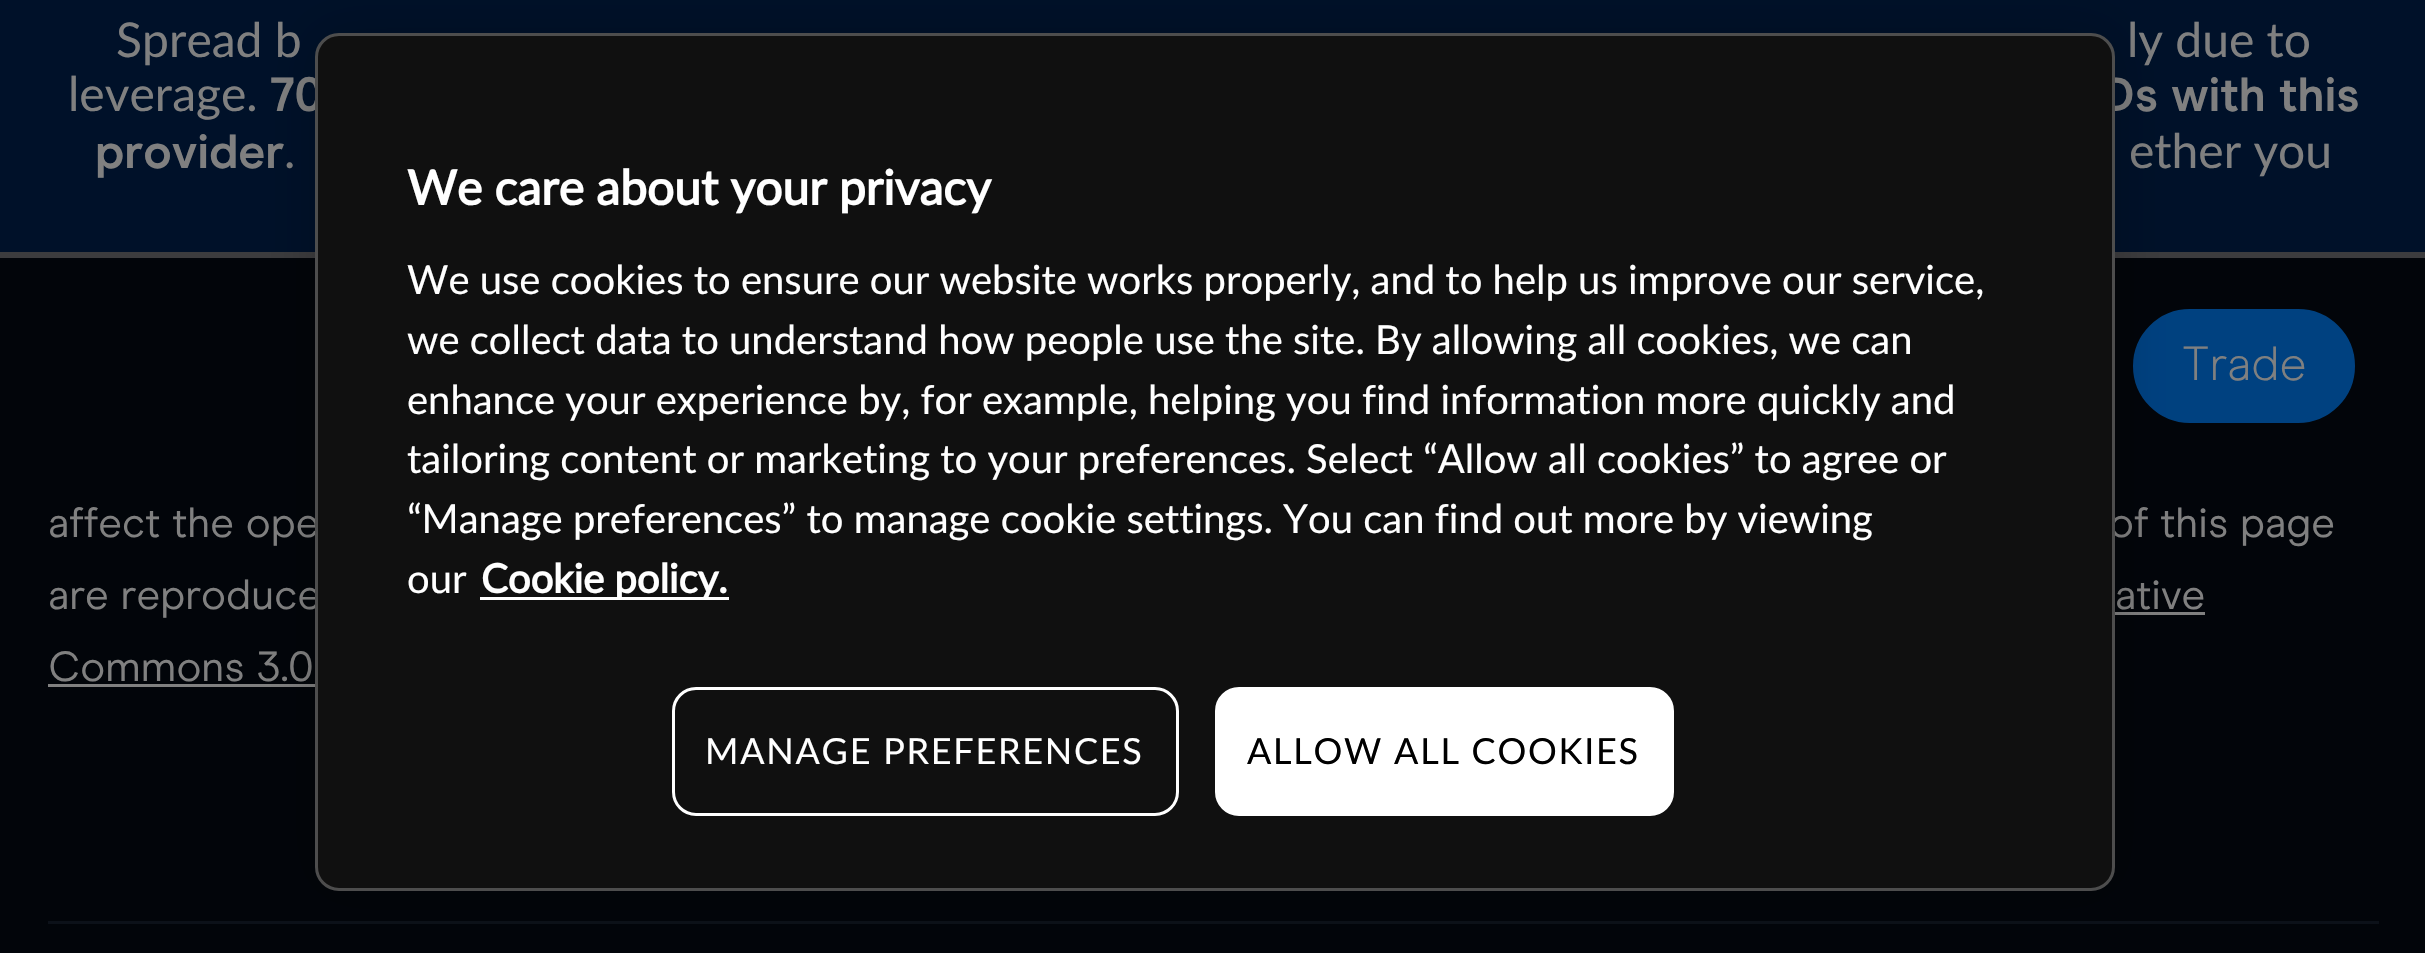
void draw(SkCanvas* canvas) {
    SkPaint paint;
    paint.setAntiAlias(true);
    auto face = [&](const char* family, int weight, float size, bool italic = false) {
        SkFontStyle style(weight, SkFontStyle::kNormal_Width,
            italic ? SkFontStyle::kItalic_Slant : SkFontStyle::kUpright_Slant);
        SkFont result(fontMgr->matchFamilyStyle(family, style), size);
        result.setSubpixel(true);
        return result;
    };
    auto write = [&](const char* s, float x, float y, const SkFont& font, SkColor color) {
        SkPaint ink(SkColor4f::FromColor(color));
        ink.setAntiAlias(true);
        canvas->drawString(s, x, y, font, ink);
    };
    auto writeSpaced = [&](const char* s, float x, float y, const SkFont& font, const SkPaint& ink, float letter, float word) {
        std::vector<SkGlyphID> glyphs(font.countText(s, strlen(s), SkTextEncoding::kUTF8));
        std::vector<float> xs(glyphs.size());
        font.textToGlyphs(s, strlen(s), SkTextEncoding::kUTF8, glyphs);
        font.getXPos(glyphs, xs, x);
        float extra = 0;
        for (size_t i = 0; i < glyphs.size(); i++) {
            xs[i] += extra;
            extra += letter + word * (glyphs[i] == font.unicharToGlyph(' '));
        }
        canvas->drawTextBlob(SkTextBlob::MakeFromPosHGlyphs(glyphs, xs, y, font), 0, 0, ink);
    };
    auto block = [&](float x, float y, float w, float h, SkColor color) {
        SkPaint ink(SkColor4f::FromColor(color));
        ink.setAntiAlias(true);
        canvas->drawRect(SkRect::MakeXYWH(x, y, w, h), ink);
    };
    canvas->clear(SkColorSetRGB(2, 5, 10));
    block(0, 0, 2425, 252, SkColorSetRGB(0, 17, 41));
    block(0, 252, 2425, 6, SkColorSetRGB(60, 60, 62));
    auto kFont1 = face("Lato", 400, 48);
    write("Spread b", 116, 57, kFont1, SkColorSetRGB(128, 128, 128));
    write("ly due to", 2127, 57, kFont1, SkColorSetRGB(128, 128, 128));
    write("leverage.", 68, 111, kFont1, SkColorSetRGB(128, 128, 128));
    auto kFont2 = face("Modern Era", 700, 48);
    paint.setColor(SkColorSetRGB(128, 128, 128));
    writeSpaced("70", 270, 111, kFont2, paint, -0.1f, 0);
    writeSpaced("Ds with this", 2101, 111, kFont2, paint, -0.1f, 0);
    writeSpaced("provider", 95, 168, kFont2, paint, -0.1f, 0);
    write(".", 284, 168, kFont1, SkColorSetRGB(128, 128, 128));
    write("ether you", 2129, 168, kFont1, SkColorSetRGB(128, 128, 128));
    paint.setColor(SkColorSetRGB(0, 65, 128));
    canvas->drawRoundRect(SkRect::MakeXYWH(2134.5f, 310.5f, 219, 111), 55.5f, 55.5f, paint);
    paint.setStyle(SkPaint::kStroke_Style);
    paint.setStrokeWidth(3);
    canvas->drawRoundRect(SkRect::MakeXYWH(2134.5f, 310.5f, 219, 111), 55.5f, 55.5f, paint);
    auto kFont3 = face("Modern Era", 300, 48);
    write("Trade", 2182, 380, kFont3, SkColorSetRGB(128, 128, 128));
    block(48, 921, 2331, 3, SkColorSetRGB(12, 17, 25));
    auto kFont4 = face("Modern Era", 400, 42);
    write("affect the ope", 48, 537, kFont4, SkColorSetRGB(128, 128, 128));
    write("of this page", 2109, 537, kFont4, SkColorSetRGB(128, 128, 128));
    write("are reproduce", 48, 609, kFont4, SkColorSetRGB(128, 128, 128));
    write("ative", 2115, 609, kFont4, SkColorSetRGB(128, 128, 128));
    block(2115, 612, 90, 3, SkColorSetRGB(128, 128, 128));
    write("Commons 3.0", 48, 681, kFont4, SkColorSetRGB(128, 128, 128));
    block(48, 684, 267, 3, SkColorSetRGB(128, 128, 128));
    paint.setStyle(SkPaint::kFill_Style);
    paint.setColor(SkColorSetARGB(51, 0, 0, 0));
    paint.setMaskFilter(SkMaskFilter::MakeBlur(kNormal_SkBlurStyle, 27));
    canvas->drawRoundRect(SkRect::MakeXYWH(315, 33, 1800, 858), 24, 24, paint);
    paint.setMaskFilter(nullptr);
    paint.setColor(SkColorSetRGB(16, 16, 16));
    canvas->drawRoundRect(SkRect::MakeXYWH(316.5f, 34.5f, 1797, 855), 22.5f, 22.5f, paint);
    paint.setStyle(SkPaint::kStroke_Style);
    paint.setColor(SkColorSetRGB(77, 77, 77));
    canvas->drawRoundRect(SkRect::MakeXYWH(316.5f, 34.5f, 1797, 855), 22.5f, 22.5f, paint);
    auto kFont5 = face("Lato", 700, 48);
    write("We care about your privacy", 407, 205, kFont5, SK_ColorWHITE);
    auto kFont6 = face("Lato", 400, 40);
    write("We use cookies to ensure our website works properly, and to help us improve our service,", 407, 294, kFont6, SK_ColorWHITE);
    write("we collect data to understand how people use the site. By allowing all cookies, we can", 407, 354, kFont6, SK_ColorWHITE);
    write("enhance your experience by, for example, helping you find information more quickly and", 407, 414, kFont6, SK_ColorWHITE);
    write("tailoring content or marketing to your preferences. Select “Allow all cookies” to agree or", 407, 473, kFont6, SK_ColorWHITE);
    write("“Manage preferences” to manage cookie settings. You can find out more by viewing", 407, 533, kFont6, SK_ColorWHITE);
    write("our", 407, 593, kFont6, SK_ColorWHITE);
    block(480, 597, 249, 3, SK_ColorWHITE);
    auto kFont7 = face("Lato", 700, 40);
    write("Cookie policy.", 481, 593, kFont7, SK_ColorWHITE);
    paint.setColor(SK_ColorWHITE);
    canvas->drawRoundRect(SkRect::MakeXYWH(673.5f, 688.5f, 504, 126), 22.5f, 22.5f, paint);
    auto kFont8 = face("Lato", 400, 36);
    paint.setStyle(SkPaint::kFill_Style);
    writeSpaced("MANAGE PREFERENCES", 705, 764, kFont8, paint, 1.75f, 0);
    canvas->drawRoundRect(SkRect::MakeXYWH(1216.5f, 688.5f, 456, 126), 22.5f, 22.5f, paint);
    paint.setStyle(SkPaint::kStroke_Style);
    canvas->drawRoundRect(SkRect::MakeXYWH(1216.5f, 688.5f, 456, 126), 22.5f, 22.5f, paint);
    paint.setStyle(SkPaint::kFill_Style);
    paint.setColor(SK_ColorBLACK);
    writeSpaced("ALLOW ALL COOKIES", 1247, 764, kFont8, paint, 1.75f, 0);
}
